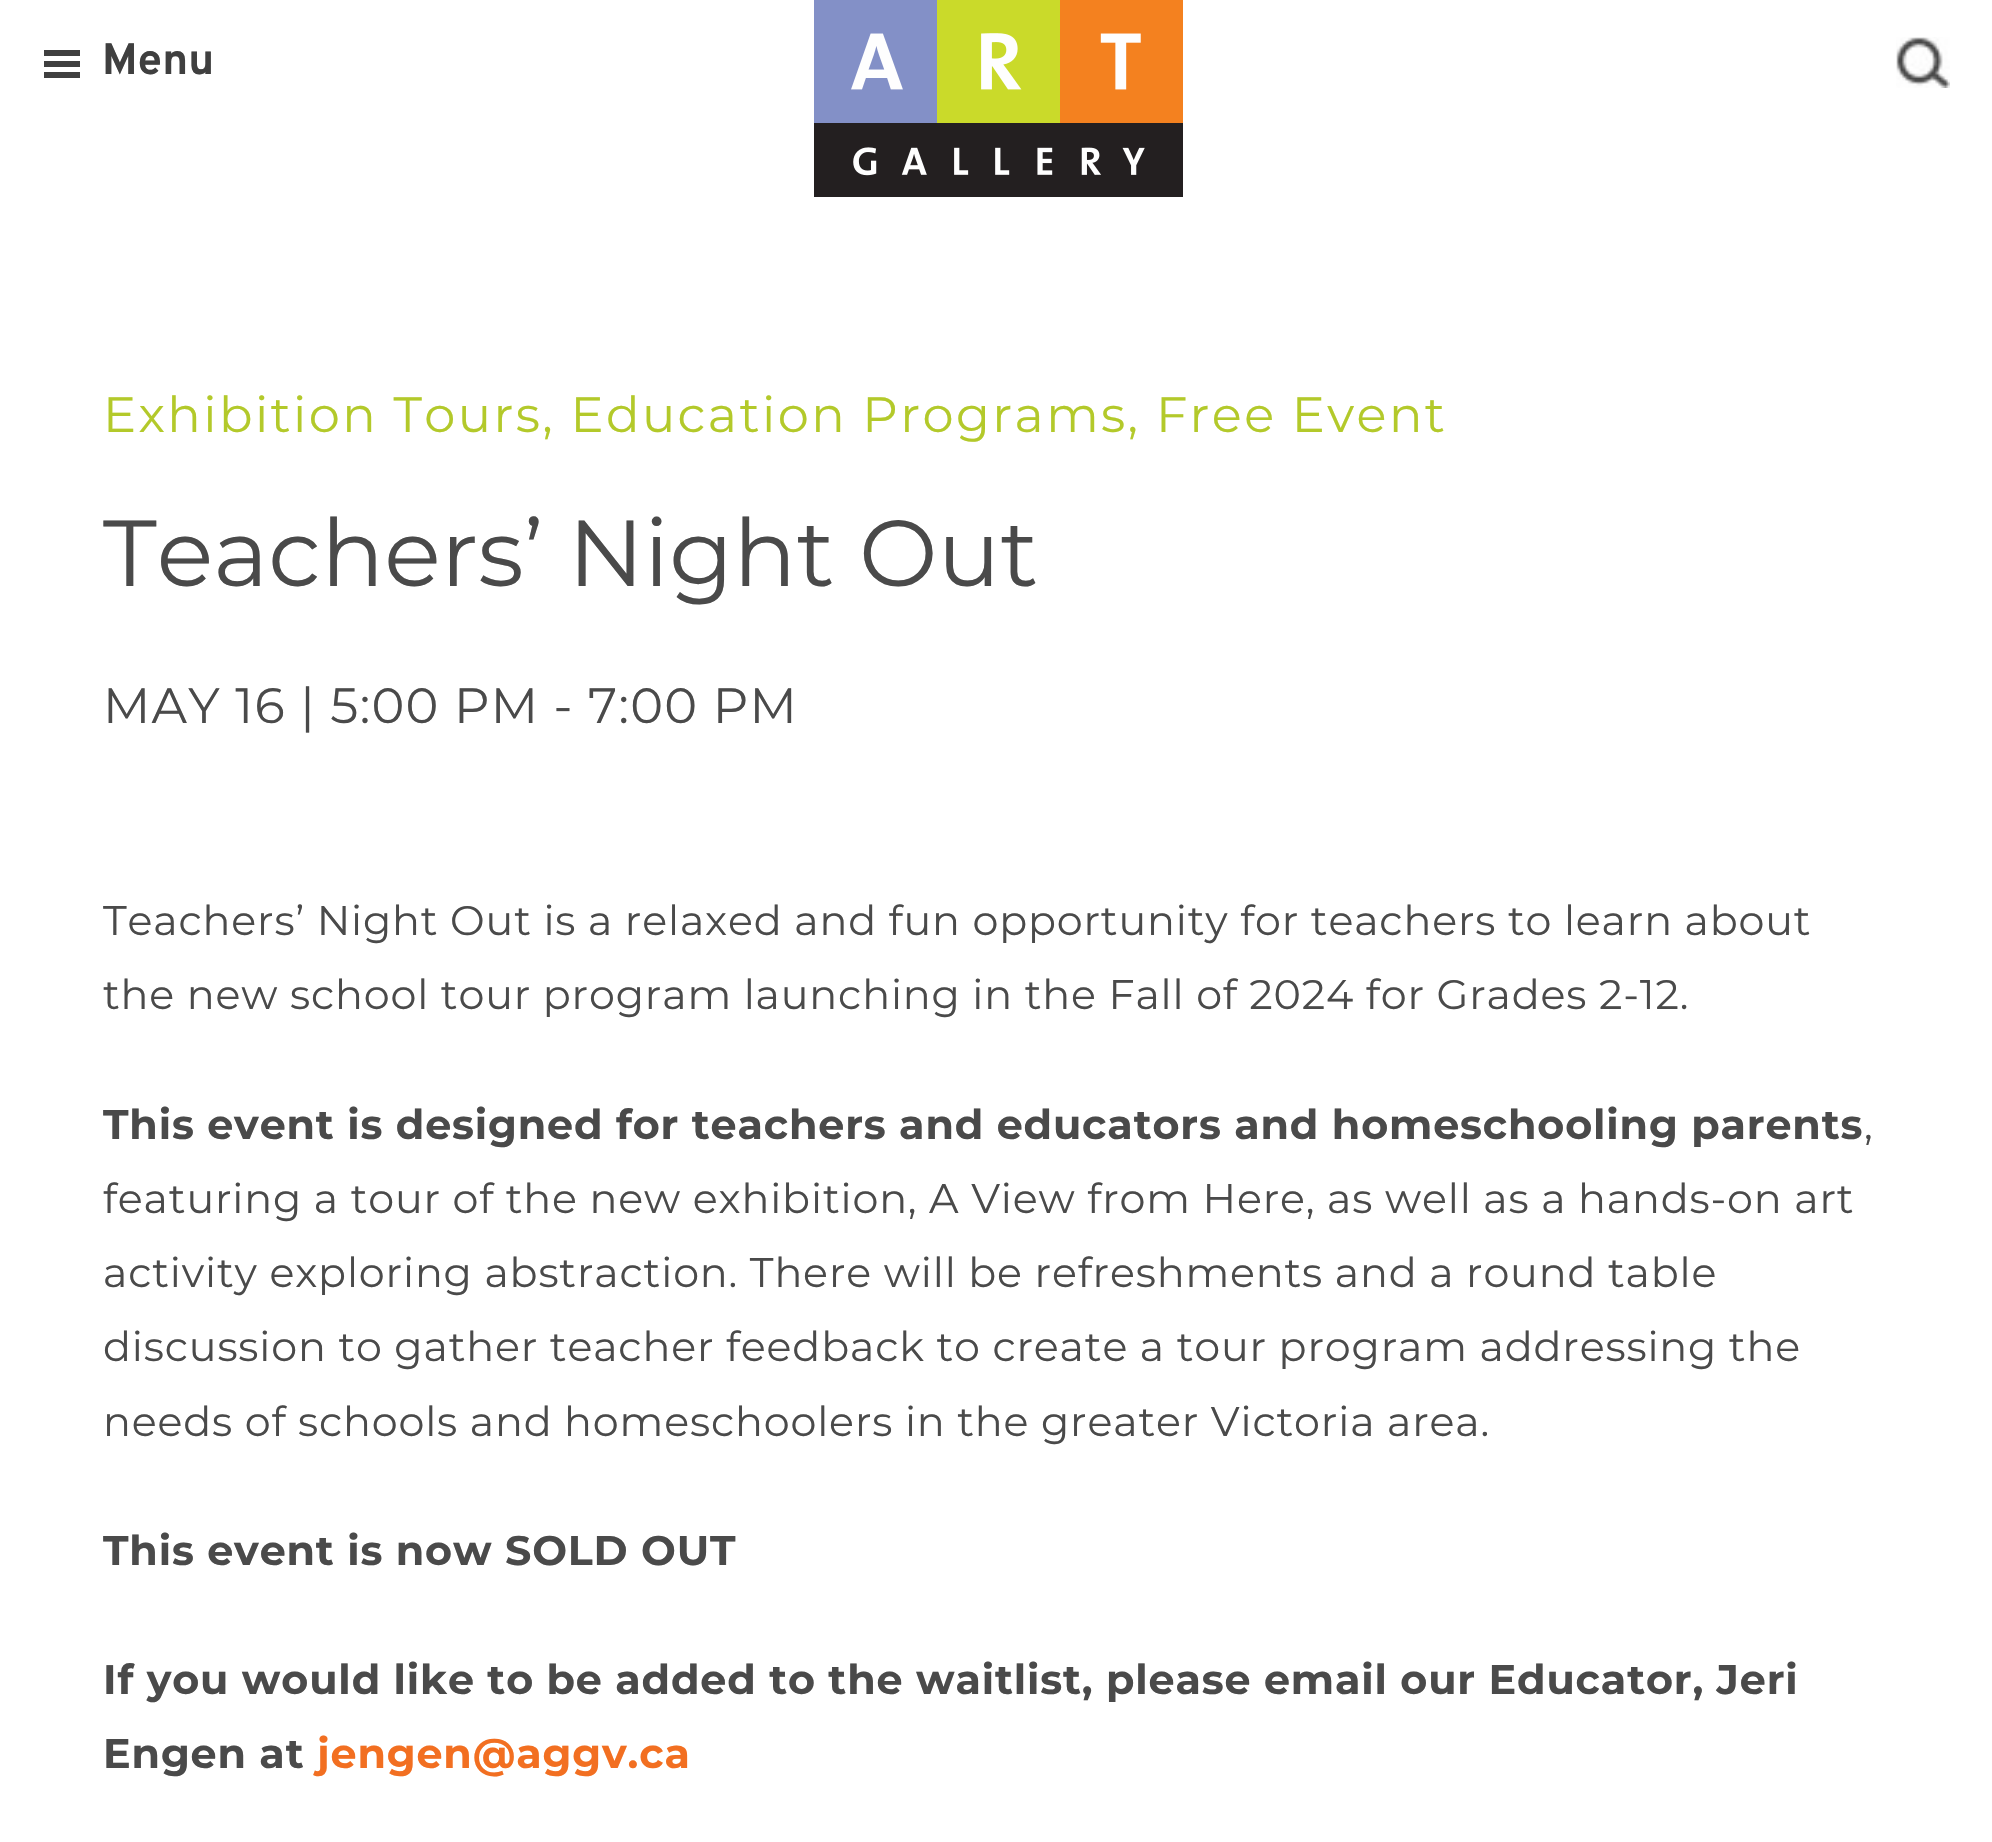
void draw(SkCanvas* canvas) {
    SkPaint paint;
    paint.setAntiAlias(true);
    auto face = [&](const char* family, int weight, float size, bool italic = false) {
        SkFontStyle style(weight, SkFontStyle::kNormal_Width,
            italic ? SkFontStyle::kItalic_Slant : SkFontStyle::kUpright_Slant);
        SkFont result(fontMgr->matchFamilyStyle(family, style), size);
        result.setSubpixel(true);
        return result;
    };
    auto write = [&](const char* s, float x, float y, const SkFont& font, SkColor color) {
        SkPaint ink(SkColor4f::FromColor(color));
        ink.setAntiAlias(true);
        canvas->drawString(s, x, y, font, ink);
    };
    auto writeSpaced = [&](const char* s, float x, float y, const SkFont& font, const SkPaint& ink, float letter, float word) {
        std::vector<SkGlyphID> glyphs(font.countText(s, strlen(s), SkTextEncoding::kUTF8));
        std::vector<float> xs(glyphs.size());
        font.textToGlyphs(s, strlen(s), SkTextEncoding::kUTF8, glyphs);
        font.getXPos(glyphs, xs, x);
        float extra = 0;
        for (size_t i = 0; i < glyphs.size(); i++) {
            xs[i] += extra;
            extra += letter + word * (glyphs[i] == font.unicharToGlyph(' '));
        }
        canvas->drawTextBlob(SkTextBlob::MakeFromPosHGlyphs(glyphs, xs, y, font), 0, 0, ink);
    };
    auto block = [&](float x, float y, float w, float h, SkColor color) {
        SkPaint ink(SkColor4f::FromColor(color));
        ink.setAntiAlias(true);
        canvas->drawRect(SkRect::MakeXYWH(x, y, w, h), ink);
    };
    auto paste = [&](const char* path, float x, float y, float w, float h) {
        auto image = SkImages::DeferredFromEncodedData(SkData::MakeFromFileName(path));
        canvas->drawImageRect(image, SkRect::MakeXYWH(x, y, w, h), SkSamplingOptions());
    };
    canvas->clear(SK_ColorWHITE);
    block(44, 50, 36, 6, SkColorSetRGB(63, 63, 63));
    block(44, 61, 36, 6, SkColorSetRGB(63, 63, 63));
    block(44, 72, 36, 6, SkColorSetRGB(63, 63, 63));
    auto kFont1 = face("Overpass", 700, 44);
    write("Menu", 102, 74, kFont1, SkColorSetRGB(63, 63, 63));
    paste("pic1.png", 814, 0, 369, 197);
    paste("pic2.png", 1896, 37, 54, 51);
    auto kFont2 = face("Montserrat", 400, 49.5f);
    paint.setColor(SkColorSetRGB(179, 201, 42));
    writeSpaced("Exhibition Tours, Education Programs, Free Event", 103, 432, kFont2, paint, 2.4f, 0);
    auto kFont3 = face("Montserrat", 400, 93.5f);
    write("Teachers’ Night Out", 103, 586, kFont3, SkColorSetRGB(74, 74, 74));
    paint.setColor(SkColorSetRGB(74, 74, 74));
    writeSpaced("MAY 16 | 5:00 PM - 7:00 PM", 103, 723, kFont2, paint, 1.3f, 0);
    auto kFont4 = face("Montserrat", 400, 41.25f);
    writeSpaced("Teachers’ Night Out is a relaxed and fun opportunity for teachers to learn about", 103, 935, kFont4, paint, 0.85f, 0);
    writeSpaced("the new school tour program launching in the Fall of 2024 for Grades 2-12.", 103, 1009, kFont4, paint, 0.85f, 0);
    auto kFont5 = face("Montserrat", 700, 41.25f);
    writeSpaced("This event is designed for teachers and educators and homeschooling parents", 103, 1139, kFont5, paint, 0.85f, 0);
    writeSpaced(",", 1864, 1139, kFont4, paint, 0.85f, 0);
    writeSpaced("featuring a tour of the new exhibition, A View from Here, as well as a hands-on art", 103, 1213, kFont4, paint, 0.85f, 0);
    writeSpaced("activity exploring abstraction. There will be refreshments and a round table", 103, 1287, kFont4, paint, 0.85f, 0);
    writeSpaced("discussion to gather teacher feedback to create a tour program addressing the", 103, 1361, kFont4, paint, 0.85f, 0);
    writeSpaced("needs of schools and homeschoolers in the greater Victoria area.", 103, 1436, kFont4, paint, 0.85f, 0);
    writeSpaced("This event is now SOLD OUT", 103, 1565, kFont5, paint, 0.85f, 0);
    writeSpaced("If you would like to be added to the waitlist, please email our Educator, Jeri", 103, 1694, kFont5, paint, 0.85f, 0);
    writeSpaced("Engen at", 103, 1768, kFont5, paint, 0.85f, 0);
    paint.setColor(SkColorSetRGB(242, 111, 33));
    writeSpaced("jengen@aggv.ca", 317, 1768, kFont5, paint, 0.85f, 0);
}
